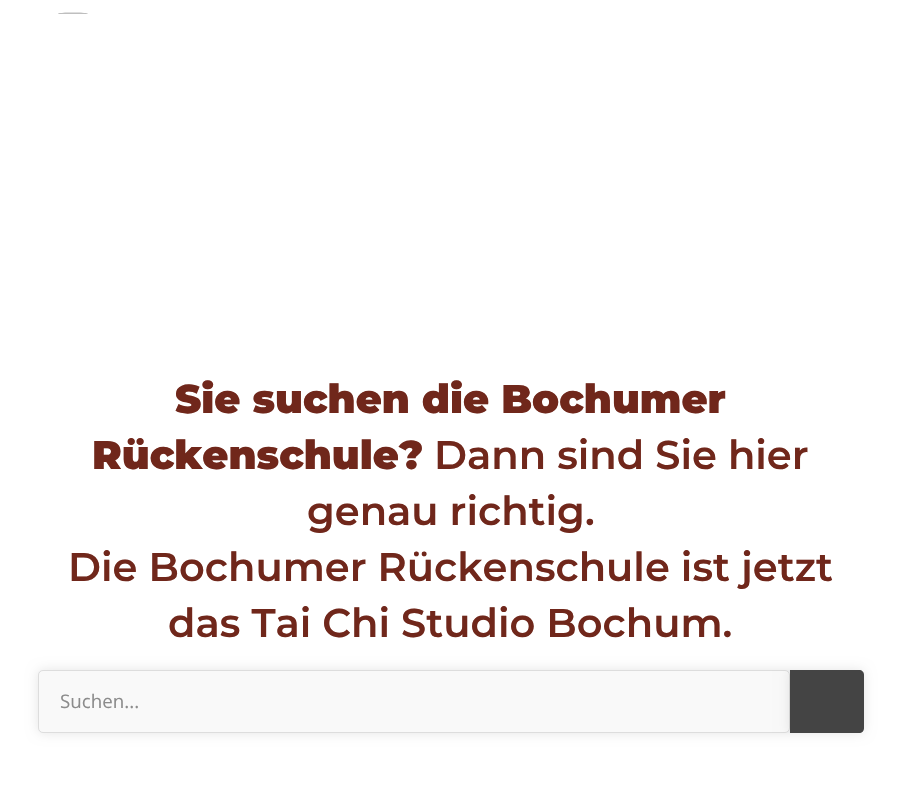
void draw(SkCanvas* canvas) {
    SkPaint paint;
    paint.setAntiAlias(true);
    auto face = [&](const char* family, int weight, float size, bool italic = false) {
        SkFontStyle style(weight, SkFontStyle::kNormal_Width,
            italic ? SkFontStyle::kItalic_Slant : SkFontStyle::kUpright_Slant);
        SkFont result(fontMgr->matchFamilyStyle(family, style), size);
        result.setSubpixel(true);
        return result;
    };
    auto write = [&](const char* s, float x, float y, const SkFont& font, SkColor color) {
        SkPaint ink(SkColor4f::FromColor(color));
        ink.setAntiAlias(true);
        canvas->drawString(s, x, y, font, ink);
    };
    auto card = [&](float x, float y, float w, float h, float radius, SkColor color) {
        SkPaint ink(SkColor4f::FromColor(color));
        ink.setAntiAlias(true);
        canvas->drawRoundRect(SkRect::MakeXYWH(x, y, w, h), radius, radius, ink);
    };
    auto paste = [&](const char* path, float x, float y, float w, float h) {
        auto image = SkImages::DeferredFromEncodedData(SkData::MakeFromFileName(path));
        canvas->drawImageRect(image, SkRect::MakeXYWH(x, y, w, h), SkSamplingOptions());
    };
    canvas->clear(SK_ColorWHITE);
    paste("pic1.png", 58, 12, 30, 2);
    auto kFont1 = face("Montserrat", 900, 40);
    write("Sie suchen die Bochumer", 175, 413, kFont1, SkColorSetRGB(112, 39, 27));
    write("Rückenschule?", 92, 469, kFont1, SkColorSetRGB(112, 39, 27));
    auto kFont2 = face("Montserrat", 600, 40);
    write("Dann sind Sie hier", 434, 469, kFont2, SkColorSetRGB(112, 39, 27));
    write("genau richtig.", 307, 525, kFont2, SkColorSetRGB(112, 39, 27));
    write("Die Bochumer Rückenschule ist jetzt", 68, 581, kFont2, SkColorSetRGB(112, 39, 27));
    write("das Tai Chi Studio Bochum.", 168, 637, kFont2, SkColorSetRGB(112, 39, 27));
    paint.setColor(SkColorSetARGB(26, 0, 0, 0));
    paint.setMaskFilter(SkMaskFilter::MakeBlur(kNormal_SkBlurStyle, 6));
    canvas->drawRoundRect(SkRect::MakeXYWH(38, 670, 826, 63), 5, 5, paint);
    paint.setMaskFilter(nullptr);
    card(38, 670, 826, 63, 5, SkColorSetRGB(241, 242, 243));
    paint.setColor(SkColorSetRGB(249, 249, 249));
    canvas->drawRoundRect(SkRect::MakeXYWH(38.5f, 670.5f, 751, 62), 4.5f, 4.5f, paint);
    paint.setStyle(SkPaint::kStroke_Style);
    paint.setStrokeWidth(1);
    paint.setColor(SkColorSetRGB(221, 221, 221));
    canvas->drawRoundRect(SkRect::MakeXYWH(38.5f, 670.5f, 751, 62), 4.5f, 4.5f, paint);
    auto kFont3 = face("Open Sans", 400, 18.75f);
    write("Suchen...", 60, 708, kFont3, SkColorSetRGB(140, 140, 140));
    canvas->save();
    canvas->clipPath(SkPathBuilder().moveTo(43, 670).lineTo(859, 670).cubicTo(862, 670, 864, 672, 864, 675).lineTo(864, 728).cubicTo(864, 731, 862, 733, 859, 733).lineTo(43, 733).cubicTo(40, 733, 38, 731, 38, 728).lineTo(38, 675).cubicTo(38, 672, 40, 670, 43, 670).close().detach(), true);
    paint.setStyle(SkPaint::kFill_Style);
    paint.setColor(SkColorSetARGB(26, 0, 0, 0));
    paint.setMaskFilter(SkMaskFilter::MakeBlur(kNormal_SkBlurStyle, 6));
    canvas->drawRect(SkRect::MakeXYWH(790, 670, 74, 63), paint);
    paint.setMaskFilter(nullptr);
    canvas->restore();
    paint.setColor(SkColorSetRGB(68, 68, 68));
    canvas->drawPath(SkPathBuilder().moveTo(790, 670).lineTo(859, 670).cubicTo(862, 670, 864, 672, 864, 675).lineTo(864, 728).cubicTo(864, 731, 862, 733, 859, 733).lineTo(790, 733).close().detach(), paint);
}
